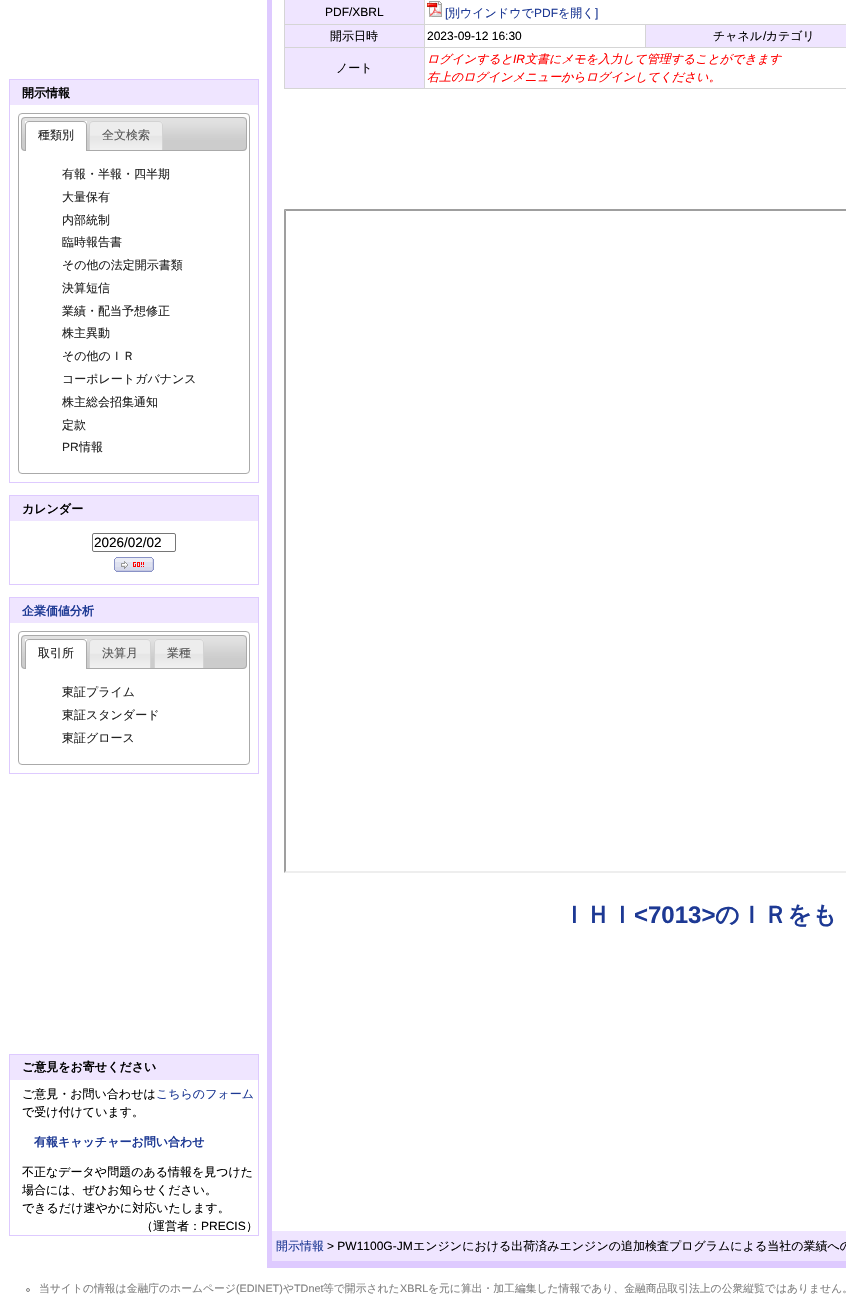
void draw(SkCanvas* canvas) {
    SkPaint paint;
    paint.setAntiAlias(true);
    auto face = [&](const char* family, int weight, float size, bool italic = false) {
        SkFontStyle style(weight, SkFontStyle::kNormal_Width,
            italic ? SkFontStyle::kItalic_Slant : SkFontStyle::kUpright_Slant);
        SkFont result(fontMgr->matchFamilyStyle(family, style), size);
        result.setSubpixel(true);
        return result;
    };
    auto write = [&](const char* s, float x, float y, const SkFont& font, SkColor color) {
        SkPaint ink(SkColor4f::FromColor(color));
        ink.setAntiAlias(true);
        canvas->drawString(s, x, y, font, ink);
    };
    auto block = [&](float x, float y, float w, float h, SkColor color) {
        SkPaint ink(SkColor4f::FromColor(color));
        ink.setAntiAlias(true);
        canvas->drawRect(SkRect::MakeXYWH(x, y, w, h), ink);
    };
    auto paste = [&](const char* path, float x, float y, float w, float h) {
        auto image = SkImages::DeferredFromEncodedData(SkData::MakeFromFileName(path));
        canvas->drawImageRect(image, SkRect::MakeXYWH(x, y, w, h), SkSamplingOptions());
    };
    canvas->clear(SK_ColorWHITE);
    paint.setStyle(SkPaint::kStroke_Style);
    paint.setStrokeWidth(1);
    paint.setColor(SkColorSetRGB(222, 202, 255));
    canvas->drawRect(SkRect::MakeXYWH(9.5f, 79.5f, 249, 403), paint);
    block(10, 80, 248, 25, SkColorSetRGB(239, 229, 255));
    auto kFont1 = face("WenQuanYi Zen Hei", 700, 12);
    write("開示情報", 22, 97, kFont1, SK_ColorBLACK);
    paint.setColor(SkColorSetRGB(170, 170, 170));
    canvas->drawRoundRect(SkRect::MakeXYWH(18.5f, 113.5f, 231, 360), 3.5f, 3.5f, paint);
    paste("pic1.png", 21, 117, 226, 34);
    canvas->drawRoundRect(SkRect::MakeXYWH(21.5f, 117.5f, 225, 33), 3.5f, 3.5f, paint);
    block(25, 124, 62, 27, SK_ColorWHITE);
    block(25, 121, 62, 3, SkColorSetRGB(254, 254, 254));
    paint.setStyle(SkPaint::kFill_Style);
    canvas->drawPath(SkPathBuilder(SkPathFillType::kEvenOdd).moveTo(29, 121).lineTo(83, 121).cubicTo(85, 121, 87, 123, 87, 125).lineTo(87, 151).lineTo(25, 151).lineTo(25, 125).cubicTo(25, 123, 27, 121, 29, 121).close().moveTo(29, 122).lineTo(83, 122).cubicTo(85, 122, 86, 123, 86, 125).lineTo(86, 151).lineTo(26, 151).lineTo(26, 125).cubicTo(26, 123, 27, 122, 29, 122).close().detach(), paint);
    auto kFont2 = face("WenQuanYi Zen Hei", 500, 12);
    write("種類別", 38, 139, kFont2, SkColorSetRGB(34, 34, 34));
    paste("pic2.png", 89, 121, 74, 29);
    paint.setColor(SkColorSetRGB(211, 211, 211));
    canvas->drawPath(SkPathBuilder(SkPathFillType::kEvenOdd).moveTo(93, 121).lineTo(159, 121).cubicTo(161, 121, 163, 123, 163, 125).lineTo(163, 150).lineTo(89, 150).lineTo(89, 125).cubicTo(89, 123, 91, 121, 93, 121).close().moveTo(93, 122).lineTo(159, 122).cubicTo(161, 122, 162, 123, 162, 125).lineTo(162, 150).lineTo(90, 150).lineTo(90, 125).cubicTo(90, 123, 91, 122, 93, 122).close().detach(), paint);
    write("全文検索", 102, 139, kFont2, SkColorSetRGB(85, 85, 85));
    write("有報・半報・四半期", 62, 178, kFont2, SkColorSetRGB(34, 34, 34));
    write("大量保有", 62, 201, kFont2, SkColorSetRGB(34, 34, 34));
    write("内部統制", 62, 224, kFont2, SkColorSetRGB(34, 34, 34));
    write("臨時報告書", 62, 246, kFont2, SkColorSetRGB(34, 34, 34));
    write("その他の法定開示書類", 62, 269, kFont2, SkColorSetRGB(34, 34, 34));
    write("決算短信", 62, 292, kFont2, SkColorSetRGB(34, 34, 34));
    write("業績・配当予想修正", 62, 315, kFont2, SkColorSetRGB(34, 34, 34));
    write("株主異動", 62, 337, kFont2, SkColorSetRGB(34, 34, 34));
    write("その他のＩＲ", 62, 360, kFont2, SkColorSetRGB(34, 34, 34));
    write("コーポレートガバナンス", 62, 383, kFont2, SkColorSetRGB(34, 34, 34));
    write("株主総会招集通知", 62, 406, kFont2, SkColorSetRGB(34, 34, 34));
    write("定款", 62, 429, kFont2, SkColorSetRGB(34, 34, 34));
    auto kFont3 = face("Liberation Sans", 400, 12);
    write("PR", 62, 451, kFont3, SkColorSetRGB(34, 34, 34));
    write("情報", 79, 451, kFont2, SkColorSetRGB(34, 34, 34));
    paint.setStyle(SkPaint::kStroke_Style);
    paint.setColor(SkColorSetRGB(222, 202, 255));
    canvas->drawRect(SkRect::MakeXYWH(9.5f, 495.5f, 249, 89), paint);
    block(10, 496, 248, 25, SkColorSetRGB(239, 229, 255));
    write("カレンダー", 22, 513, kFont1, SK_ColorBLACK);
    paint.setColor(SkColorSetRGB(118, 118, 118));
    canvas->drawRoundRect(SkRect::MakeXYWH(92.5f, 533.5f, 83, 18), 1.5f, 1.5f, paint);
    auto kFont4 = face("Liberation Sans", 400, 13.5f);
    write("2026/02/02", 94, 547, kFont4, SK_ColorBLACK);
    paste("pic3.png", 114, 557, 40, 15);
    paint.setColor(SkColorSetRGB(222, 202, 255));
    canvas->drawRect(SkRect::MakeXYWH(9.5f, 597.5f, 249, 176), paint);
    block(10, 598, 248, 25, SkColorSetRGB(239, 229, 255));
    write("企業価値分析", 22, 615, kFont1, SkColorSetRGB(29, 57, 148));
    paint.setColor(SkColorSetRGB(170, 170, 170));
    canvas->drawRoundRect(SkRect::MakeXYWH(18.5f, 631.5f, 231, 133), 3.5f, 3.5f, paint);
    paste("pic1.png", 21, 635, 226, 34);
    canvas->drawRoundRect(SkRect::MakeXYWH(21.5f, 635.5f, 225, 33), 3.5f, 3.5f, paint);
    block(25, 642, 62, 27, SK_ColorWHITE);
    block(25, 639, 62, 3, SkColorSetRGB(254, 254, 254));
    paint.setStyle(SkPaint::kFill_Style);
    canvas->drawPath(SkPathBuilder(SkPathFillType::kEvenOdd).moveTo(29, 639).lineTo(83, 639).cubicTo(85, 639, 87, 641, 87, 643).lineTo(87, 669).lineTo(25, 669).lineTo(25, 643).cubicTo(25, 641, 27, 639, 29, 639).close().moveTo(29, 640).lineTo(83, 640).cubicTo(85, 640, 86, 641, 86, 643).lineTo(86, 669).lineTo(26, 669).lineTo(26, 643).cubicTo(26, 641, 27, 640, 29, 640).close().detach(), paint);
    write("取引所", 38, 657, kFont2, SkColorSetRGB(34, 34, 34));
    paste("pic4.png", 89, 639, 62, 29);
    paint.setColor(SkColorSetRGB(211, 211, 211));
    canvas->drawPath(SkPathBuilder(SkPathFillType::kEvenOdd).moveTo(93, 639).lineTo(147, 639).cubicTo(149, 639, 151, 641, 151, 643).lineTo(151, 668).lineTo(89, 668).lineTo(89, 643).cubicTo(89, 641, 91, 639, 93, 639).close().moveTo(93, 640).lineTo(147, 640).cubicTo(149, 640, 150, 641, 150, 643).lineTo(150, 668).lineTo(90, 668).lineTo(90, 643).cubicTo(90, 641, 91, 640, 93, 640).close().detach(), paint);
    write("決算月", 102, 657, kFont2, SkColorSetRGB(85, 85, 85));
    paste("pic5.png", 154, 639, 50, 29);
    canvas->drawPath(SkPathBuilder(SkPathFillType::kEvenOdd).moveTo(158, 639).lineTo(200, 639).cubicTo(202, 639, 204, 641, 204, 643).lineTo(204, 668).lineTo(154, 668).lineTo(154, 643).cubicTo(154, 641, 156, 639, 158, 639).close().moveTo(158, 640).lineTo(200, 640).cubicTo(202, 640, 203, 641, 203, 643).lineTo(203, 668).lineTo(155, 668).lineTo(155, 643).cubicTo(155, 641, 156, 640, 158, 640).close().detach(), paint);
    write("業種", 167, 657, kFont2, SkColorSetRGB(85, 85, 85));
    write("東証プライム", 62, 696, kFont2, SkColorSetRGB(34, 34, 34));
    write("東証スタンダード", 62, 719, kFont2, SkColorSetRGB(34, 34, 34));
    write("東証グロース", 62, 742, kFont2, SkColorSetRGB(34, 34, 34));
    paint.setStyle(SkPaint::kStroke_Style);
    paint.setColor(SkColorSetRGB(222, 202, 255));
    canvas->drawRect(SkRect::MakeXYWH(9.5f, 1054.5f, 249, 181), paint);
    block(10, 1055, 248, 25, SkColorSetRGB(239, 229, 255));
    write("ご意見をお寄せください", 22, 1071, kFont1, SK_ColorBLACK);
    write("ご意見・お問い合わせは", 22, 1098, kFont2, SK_ColorBLACK);
    write("こちらのフォーム", 156, 1098, kFont2, SkColorSetRGB(29, 57, 148));
    write("で受け付けています。", 22, 1116, kFont2, SK_ColorBLACK);
    write("有報キャッチャーお問い合わせ", 34, 1146, kFont1, SkColorSetRGB(29, 57, 148));
    write("不正なデータや問題のある情報を見つけた", 22, 1176, kFont2, SK_ColorBLACK);
    write("場合には、ぜひお知らせください。", 22, 1194, kFont2, SK_ColorBLACK);
    write("できるだけ速やかに対応いたします。", 22, 1212, kFont2, SK_ColorBLACK);
    write("（運営者：", 141, 1230, kFont2, SK_ColorBLACK);
    write("PRECIS", 201, 1230, kFont3, SK_ColorBLACK);
    write("）", 246, 1230, kFont2, SK_ColorBLACK);
    block(267, 0, 579, 1268, SkColorSetRGB(222, 202, 255));
    block(272, 0, 574, 1231, SK_ColorWHITE);
    block(284, 88, 562, 1, SkColorSetRGB(213, 213, 213));
    block(284, 0, 1, 89, SkColorSetRGB(213, 213, 213));
    block(285, 0, 139, 24, SkColorSetRGB(239, 229, 255));
    write("PDF/XBRL", 325, 16, kFont3, SK_ColorBLACK);
    block(645, 24, 201, 1, SkColorSetRGB(213, 213, 213));
    block(424, 47, 422, 1, SkColorSetRGB(213, 213, 213));
    block(645, 24, 1, 24, SkColorSetRGB(213, 213, 213));
    block(424, 24, 222, 1, SkColorSetRGB(213, 213, 213));
    block(424, 47, 1, 42, SkColorSetRGB(213, 213, 213));
    block(284, 47, 141, 1, SkColorSetRGB(213, 213, 213));
    block(424, 24, 1, 24, SkColorSetRGB(213, 213, 213));
    block(284, 24, 141, 1, SkColorSetRGB(213, 213, 213));
    block(424, 0, 1, 25, SkColorSetRGB(213, 213, 213));
    paste("pic6.png", 427, 1, 15, 16);
    write("[", 445, 17, kFont3, SkColorSetRGB(29, 57, 148));
    write("別ウインドウで", 448, 17, kFont2, SkColorSetRGB(29, 57, 148));
    write("PDF", 534, 17, kFont3, SkColorSetRGB(29, 57, 148));
    write("を開く", 558, 17, kFont2, SkColorSetRGB(29, 57, 148));
    write("]", 595, 17, kFont3, SkColorSetRGB(29, 57, 148));
    block(285, 25, 139, 22, SkColorSetRGB(239, 229, 255));
    write("開示日時", 330, 40, kFont2, SK_ColorBLACK);
    write("2023-09-12 16:30", 427, 40, kFont3, SK_ColorBLACK);
    block(646, 25, 200, 22, SkColorSetRGB(239, 229, 255));
    write("チャネル カテゴリ", 713, 40, kFont2, SK_ColorBLACK);
    write("/", 763, 40, kFont3, SK_ColorBLACK);
    block(285, 48, 139, 40, SkColorSetRGB(239, 229, 255));
    write("ノート", 336, 72, kFont2, SK_ColorBLACK);
    auto kFont5 = face("WenQuanYi Zen Hei", 500, 12, true);
    write("ログインすると", 427, 63, kFont5, SkColorSetRGB(255, 0, 0));
    auto kFont6 = face("Liberation Sans", 400, 12, true);
    write("IR", 513, 63, kFont6, SkColorSetRGB(255, 0, 0));
    write("文書にメモを入力して管理することができます", 525, 63, kFont5, SkColorSetRGB(255, 0, 0));
    write("右上のログインメニューからログインしてください。", 427, 81, kFont5, SkColorSetRGB(255, 0, 0));
    paint.setStyle(SkPaint::kFill_Style);
    paint.setColor(SkColorSetRGB(159, 159, 159));
    canvas->drawPath(SkPathBuilder().moveTo(284, 209).lineTo(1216, 209).lineTo(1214, 211).lineTo(286, 211).close().detach(), paint);
    paint.setColor(SkColorSetRGB(238, 238, 238));
    canvas->drawPath(SkPathBuilder().moveTo(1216, 873).lineTo(284, 873).lineTo(286, 871).lineTo(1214, 871).close().detach(), paint);
    paint.setColor(SkColorSetRGB(159, 159, 159));
    canvas->drawPath(SkPathBuilder().moveTo(284, 873).lineTo(284, 209).lineTo(286, 211).lineTo(286, 871).close().detach(), paint);
    auto kFont7 = face("WenQuanYi Zen Hei", 700, 24);
    write("ＩＨＩ", 562, 923, kFont7, SkColorSetRGB(29, 57, 148));
    auto kFont8 = face("Liberation Sans", 700, 24);
    write("<7013>", 634, 923, kFont8, SkColorSetRGB(29, 57, 148));
    write("のＩＲをも", 715, 923, kFont7, SkColorSetRGB(29, 57, 148));
    block(272, 1231, 574, 30, SkColorSetRGB(239, 229, 255));
    write("開示情報", 276, 1250, kFont2, SkColorSetRGB(29, 57, 148));
    write("> PW1100G-JM", 327, 1250, kFont3, SK_ColorBLACK);
    write("エンジンにおける出荷済みエンジンの追加検査プログラムによる当社の業績への", 413, 1250, kFont2, SK_ColorBLACK);
    paint.setStyle(SkPaint::kStroke_Style);
    paint.setColor(SkColorSetRGB(128, 128, 128));
    canvas->drawCircle(28, 1290, 1.5f, paint);
    auto kFont9 = face("WenQuanYi Zen Hei", 500, 10.8f);
    write("当サイトの情報は金融庁のホームページ", 39, 1292, kFont9, SkColorSetRGB(128, 128, 128));
    auto kFont10 = face("Liberation Sans", 400, 10.8f);
    write("(EDINET)", 236, 1292, kFont10, SkColorSetRGB(128, 128, 128));
    write("や", 283, 1292, kFont9, SkColorSetRGB(128, 128, 128));
    write("TDnet", 294, 1292, kFont10, SkColorSetRGB(128, 128, 128));
    write("等で開示された", 323, 1292, kFont9, SkColorSetRGB(128, 128, 128));
    write("XBRL", 400, 1292, kFont10, SkColorSetRGB(128, 128, 128));
    write("を元に算出・加工編集した情報であり、金融商品取引法上の公衆縦覧ではありません。", 428, 1292, kFont9, SkColorSetRGB(128, 128, 128));
}
